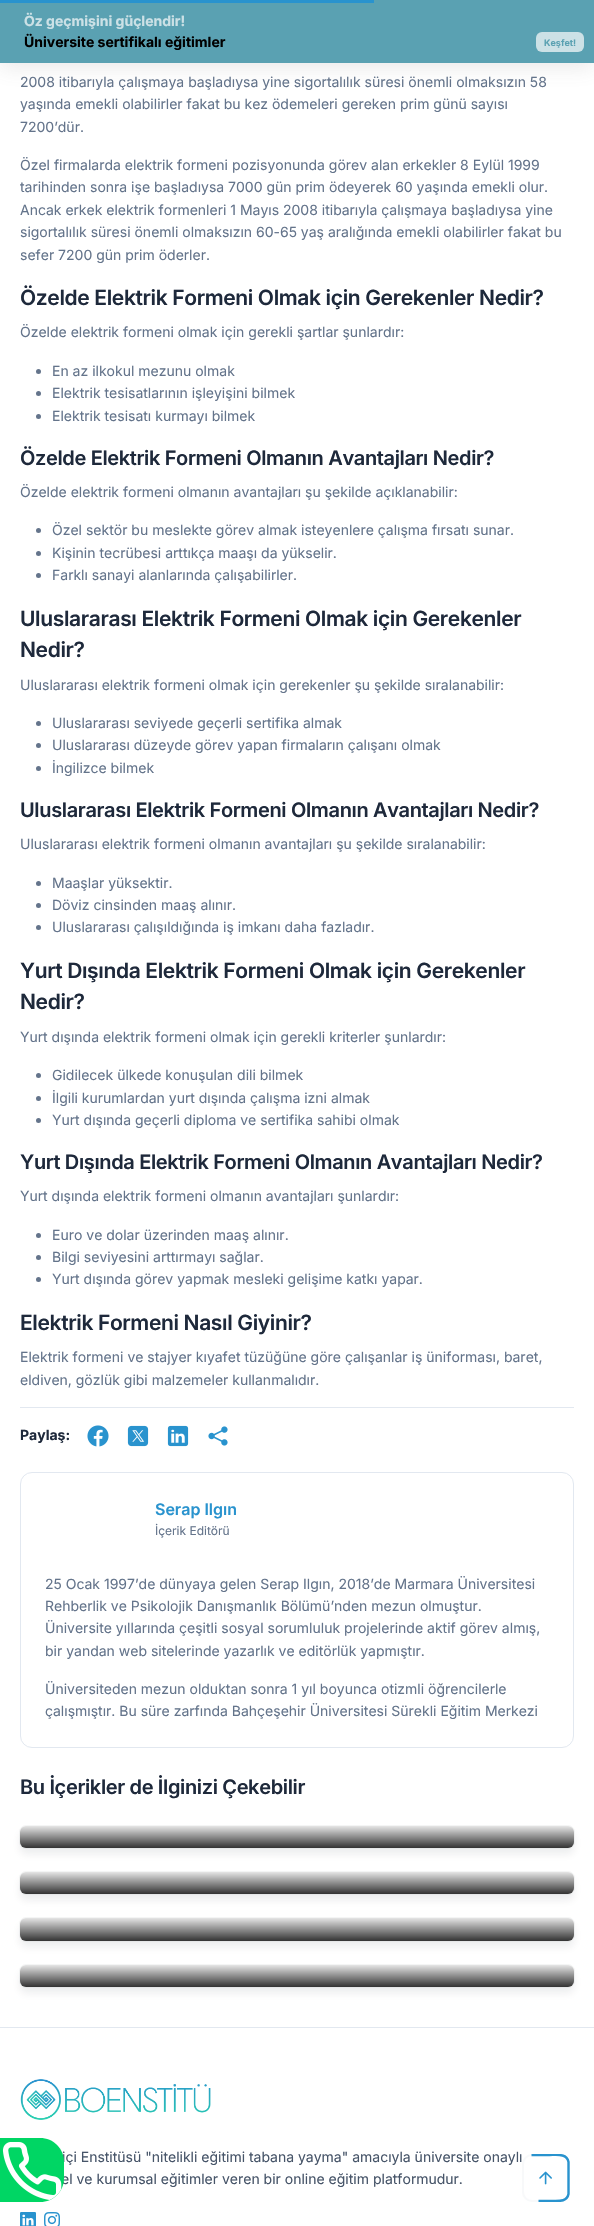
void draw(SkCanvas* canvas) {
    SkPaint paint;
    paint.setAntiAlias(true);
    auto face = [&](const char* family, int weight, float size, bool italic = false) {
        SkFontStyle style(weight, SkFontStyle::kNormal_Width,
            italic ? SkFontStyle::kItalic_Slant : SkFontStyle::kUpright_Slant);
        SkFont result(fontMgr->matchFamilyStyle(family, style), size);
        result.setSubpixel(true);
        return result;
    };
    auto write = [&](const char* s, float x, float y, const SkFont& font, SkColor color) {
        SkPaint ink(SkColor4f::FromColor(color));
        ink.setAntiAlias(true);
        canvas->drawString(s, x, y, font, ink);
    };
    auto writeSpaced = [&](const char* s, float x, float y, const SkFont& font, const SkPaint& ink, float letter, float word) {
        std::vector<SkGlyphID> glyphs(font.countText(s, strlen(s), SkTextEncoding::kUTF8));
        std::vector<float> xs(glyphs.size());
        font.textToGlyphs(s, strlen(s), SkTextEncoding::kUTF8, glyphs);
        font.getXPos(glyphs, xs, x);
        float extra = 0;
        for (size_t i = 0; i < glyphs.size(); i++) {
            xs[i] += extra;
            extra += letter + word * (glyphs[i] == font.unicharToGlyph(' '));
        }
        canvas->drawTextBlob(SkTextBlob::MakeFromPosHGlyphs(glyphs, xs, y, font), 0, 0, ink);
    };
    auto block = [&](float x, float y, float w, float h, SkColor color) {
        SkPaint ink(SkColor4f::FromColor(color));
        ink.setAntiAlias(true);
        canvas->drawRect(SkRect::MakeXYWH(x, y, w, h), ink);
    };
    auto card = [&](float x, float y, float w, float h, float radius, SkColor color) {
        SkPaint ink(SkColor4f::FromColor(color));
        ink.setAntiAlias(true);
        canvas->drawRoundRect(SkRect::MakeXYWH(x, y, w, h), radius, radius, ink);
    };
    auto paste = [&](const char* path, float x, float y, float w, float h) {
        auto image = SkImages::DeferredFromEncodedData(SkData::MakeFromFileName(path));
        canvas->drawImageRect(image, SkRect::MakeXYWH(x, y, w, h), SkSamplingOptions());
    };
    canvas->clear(SK_ColorWHITE);
    paint.setColor(SkColorSetARGB(38, 100, 100, 100));
    paint.setMaskFilter(SkMaskFilter::MakeBlur(kNormal_SkBlurStyle, 10));
    canvas->drawRect(SkRect::MakeXYWH(0, 4, 594, 63), paint);
    paint.setMaskFilter(nullptr);
    block(0, 0, 594, 63, SkColorSetRGB(90, 161, 178));
    block(0, 0, 374, 3, SkColorSetRGB(41, 147, 206));
    auto kFont1 = face("Inter", 700, 14);
    write("Öz geçmişini güçlendir!", 24, 26, kFont1, SkColorSetRGB(204, 225, 230));
    write("Üniversite sertifikalı eğitimler", 24, 47, kFont1, SK_ColorBLACK);
    card(536, 32, 48, 20, 6, SkColorSetRGB(204, 225, 230));
    auto kFont2 = face("Inter", 700, 9);
    write("Keşfet!", 544, 46, kFont2, SkColorSetRGB(90, 161, 178));
    auto kFont3 = face("Inter", 400, 14);
    write("2008 itibarıyla çalışmaya başladıysa yine sigortalılık süresi önemli olmaksızın 58", 20, 87, kFont3, SkColorSetRGB(100, 116, 139));
    write("yaşında emekli olabilirler fakat bu kez ödemeleri gereken prim günü sayısı", 20, 109, kFont3, SkColorSetRGB(100, 116, 139));
    write("7200’dür.", 20, 132, kFont3, SkColorSetRGB(100, 116, 139));
    write("Özel firmalarda elektrik formeni pozisyonunda görev alan erkekler 8 Eylül 1999", 20, 170, kFont3, SkColorSetRGB(100, 116, 139));
    write("tarihinden sonra işe başladıysa 7000 gün prim ödeyerek 60 yaşında emekli olur.", 20, 192, kFont3, SkColorSetRGB(100, 116, 139));
    write("Ancak erkek elektrik formenleri 1 Mayıs 2008 itibarıyla çalışmaya başladıysa yine", 20, 215, kFont3, SkColorSetRGB(100, 116, 139));
    write("sigortalılık süresi önemli olmaksızın 60-65 yaş aralığında emekli olabilirler fakat bu", 20, 237, kFont3, SkColorSetRGB(100, 116, 139));
    write("sefer 7200 gün prim öderler.", 20, 260, kFont3, SkColorSetRGB(100, 116, 139));
    auto kFont4 = face("Inter", 600, 21);
    paint.setColor(SkColorSetRGB(30, 41, 59));
    writeSpaced("Özelde Elektrik Formeni Olmak için Gerekenler Nedir?", 20, 305, kFont4, paint, -0.35f, 0);
    write("Özelde elektrik formeni olmak için gerekli şartlar şunlardır:", 20, 337, kFont3, SkColorSetRGB(100, 116, 139));
    paint.setColor(SkColorSetRGB(100, 116, 139));
    canvas->drawCircle(38.5f, 371.5f, 2.5f, paint);
    write("En az ilkokul mezunu olmak", 52, 376, kFont3, SkColorSetRGB(100, 116, 139));
    canvas->drawCircle(38.5f, 393.5f, 2.5f, paint);
    write("Elektrik tesisatlarının işleyişini bilmek", 52, 398, kFont3, SkColorSetRGB(100, 116, 139));
    canvas->drawCircle(38.5f, 416.5f, 2.5f, paint);
    write("Elektrik tesisatı kurmayı bilmek", 52, 421, kFont3, SkColorSetRGB(100, 116, 139));
    auto kFont5 = face("Inter", 600, 20);
    paint.setColor(SkColorSetRGB(30, 41, 59));
    writeSpaced("Özelde Elektrik Formeni Olmanın Avantajları Nedir?", 20, 465, kFont5, paint, -0.35f, 0);
    write("Özelde elektrik formeni olmanın avantajları şu şekilde açıklanabilir:", 20, 497, kFont3, SkColorSetRGB(100, 116, 139));
    paint.setColor(SkColorSetRGB(100, 116, 139));
    canvas->drawCircle(38.5f, 530.5f, 2.5f, paint);
    write("Özel sektör bu meslekte görev almak isteyenlere çalışma fırsatı sunar.", 52, 535, kFont3, SkColorSetRGB(100, 116, 139));
    canvas->drawCircle(38.5f, 553.5f, 2.5f, paint);
    write("Kişinin tecrübesi arttıkça maaşı da yükselir.", 52, 558, kFont3, SkColorSetRGB(100, 116, 139));
    canvas->drawCircle(38.5f, 575.5f, 2.5f, paint);
    write("Farklı sanayi alanlarında çalışabilirler.", 52, 580, kFont3, SkColorSetRGB(100, 116, 139));
    paint.setColor(SkColorSetRGB(30, 41, 59));
    writeSpaced("Uluslararası Elektrik Formeni Olmak için Gerekenler", 20, 626, kFont4, paint, -0.35f, 0);
    writeSpaced("Nedir?", 20, 657, kFont4, paint, -0.35f, 0);
    write("Uluslararası elektrik formeni olmak için gerekenler şu şekilde sıralanabilir:", 20, 690, kFont3, SkColorSetRGB(100, 116, 139));
    paint.setColor(SkColorSetRGB(100, 116, 139));
    canvas->drawCircle(38.5f, 723.5f, 2.5f, paint);
    write("Uluslararası seviyede geçerli sertifika almak", 52, 728, kFont3, SkColorSetRGB(100, 116, 139));
    canvas->drawCircle(38.5f, 745.5f, 2.5f, paint);
    write("Uluslararası düzeyde görev yapan firmaların çalışanı olmak", 52, 750, kFont3, SkColorSetRGB(100, 116, 139));
    canvas->drawCircle(38.5f, 768.5f, 2.5f, paint);
    write("İngilizce bilmek", 52, 773, kFont3, SkColorSetRGB(100, 116, 139));
    paint.setColor(SkColorSetRGB(30, 41, 59));
    writeSpaced("Uluslararası Elektrik Formeni Olmanın Avantajları Nedir?", 20, 817, kFont5, paint, -0.35f, 0);
    write("Uluslararası elektrik formeni olmanın avantajları şu şekilde sıralanabilir:", 20, 849, kFont3, SkColorSetRGB(100, 116, 139));
    paint.setColor(SkColorSetRGB(100, 116, 139));
    canvas->drawCircle(38.5f, 883.5f, 2.5f, paint);
    write("Maaşlar yüksektir.", 52, 888, kFont3, SkColorSetRGB(100, 116, 139));
    canvas->drawCircle(38.5f, 905.5f, 2.5f, paint);
    write("Döviz cinsinden maaş alınır.", 52, 910, kFont3, SkColorSetRGB(100, 116, 139));
    canvas->drawCircle(38.5f, 927.5f, 2.5f, paint);
    write("Uluslararası çalışıldığında iş imkanı daha fazladır.", 52, 932, kFont3, SkColorSetRGB(100, 116, 139));
    paint.setColor(SkColorSetRGB(30, 41, 59));
    writeSpaced("Yurt Dışında Elektrik Formeni Olmak için Gerekenler", 20, 978, kFont4, paint, -0.35f, 0);
    writeSpaced("Nedir?", 20, 1009, kFont4, paint, -0.35f, 0);
    write("Yurt dışında elektrik formeni olmak için gerekli kriterler şunlardır:", 20, 1042, kFont3, SkColorSetRGB(100, 116, 139));
    paint.setColor(SkColorSetRGB(100, 116, 139));
    canvas->drawCircle(38.5f, 1075.5f, 2.5f, paint);
    write("Gidilecek ülkede konuşulan dili bilmek", 52, 1080, kFont3, SkColorSetRGB(100, 116, 139));
    canvas->drawCircle(38.5f, 1098.5f, 2.5f, paint);
    write("İlgili kurumlardan yurt dışında çalışma izni almak", 52, 1103, kFont3, SkColorSetRGB(100, 116, 139));
    canvas->drawCircle(38.5f, 1120.5f, 2.5f, paint);
    write("Yurt dışında geçerli diploma ve sertifika sahibi olmak", 52, 1125, kFont3, SkColorSetRGB(100, 116, 139));
    paint.setColor(SkColorSetRGB(30, 41, 59));
    writeSpaced("Yurt Dışında Elektrik Formeni Olmanın Avantajları Nedir?", 20, 1169, kFont5, paint, -0.35f, 0);
    write("Yurt dışında elektrik formeni olmanın avantajları şunlardır:", 20, 1201, kFont3, SkColorSetRGB(100, 116, 139));
    paint.setColor(SkColorSetRGB(100, 116, 139));
    canvas->drawCircle(38.5f, 1235.5f, 2.5f, paint);
    write("Euro ve dolar üzerinden maaş alınır.", 52, 1240, kFont3, SkColorSetRGB(100, 116, 139));
    canvas->drawCircle(38.5f, 1257.5f, 2.5f, paint);
    write("Bilgi seviyesini arttırmayı sağlar.", 52, 1262, kFont3, SkColorSetRGB(100, 116, 139));
    canvas->drawCircle(38.5f, 1279.5f, 2.5f, paint);
    write("Yurt dışında görev yapmak mesleki gelişime katkı yapar.", 52, 1284, kFont3, SkColorSetRGB(100, 116, 139));
    paint.setColor(SkColorSetRGB(30, 41, 59));
    writeSpaced("Elektrik Formeni Nasıl Giyinir?", 20, 1330, kFont4, paint, -0.35f, 0);
    write("Elektrik formeni ve stajyer kıyafet tüzüğüne göre çalışanlar iş üniforması, baret,", 20, 1362, kFont3, SkColorSetRGB(100, 116, 139));
    write("eldiven, gözlük gibi malzemeler kullanmalıdır.", 20, 1385, kFont3, SkColorSetRGB(100, 116, 139));
    block(20, 1407, 554, 1, SkColorSetRGB(226, 232, 240));
    write("Paylaş:", 20, 1440, kFont1, SkColorSetRGB(30, 41, 59));
    paste("pic1.png", 87, 1425, 22, 22);
    paste("pic2.png", 127, 1425, 22, 22);
    paste("pic3.png", 167, 1425, 22, 22);
    paste("pic4.png", 208, 1426, 20, 20);
    paint.setStyle(SkPaint::kStroke_Style);
    paint.setStrokeWidth(1);
    paint.setColor(SkColorSetRGB(226, 232, 240));
    canvas->drawRoundRect(SkRect::MakeXYWH(20.5f, 1472.5f, 553, 275), 11.5f, 11.5f, paint);
    auto kFont6 = face("Inter", 600, 16);
    write("Serap Ilgın", 155, 1515, kFont6, SkColorSetRGB(41, 147, 206));
    auto kFont7 = face("Inter", 400, 12);
    write("İçerik Editörü", 155, 1535, kFont7, SkColorSetRGB(100, 116, 139));
    write("25 Ocak 1997’de dünyaya gelen Serap Ilgın, 2018’de Marmara Üniversitesi", 45, 1589, kFont3, SkColorSetRGB(100, 116, 139));
    write("Rehberlik ve Psikolojik Danışmanlık Bölümü’nden mezun olmuştur.", 45, 1611, kFont3, SkColorSetRGB(100, 116, 139));
    write("Üniversite yıllarında çeşitli sosyal sorumluluk projelerinde aktif görev almış,", 45, 1633, kFont3, SkColorSetRGB(100, 116, 139));
    write("bir yandan web sitelerinde yazarlık ve editörlük yapmıştır.", 45, 1656, kFont3, SkColorSetRGB(100, 116, 139));
    write("Üniversiteden mezun olduktan sonra 1 yıl boyunca otizmli öğrencilerle", 45, 1694, kFont3, SkColorSetRGB(100, 116, 139));
    write("çalışmıştır. Bu süre zarfında Bahçeşehir Üniversitesi Sürekli Eğitim Merkezi", 45, 1716, kFont3, SkColorSetRGB(100, 116, 139));
    paint.setStyle(SkPaint::kFill_Style);
    paint.setColor(SkColorSetRGB(30, 41, 59));
    writeSpaced("Bu İçerikler de İlginizi Çekebilir", 20, 1794, kFont5, paint, -0.35f, 0);
    paint.setStyle(SkPaint::kStroke_Style);
    paint.setColor(SkColorSetRGB(245, 246, 246));
    canvas->drawRoundRect(SkRect::MakeXYWH(19.5f, 1825.5f, 555, 23), 6.5f, 6.5f, paint);
    paint.setStyle(SkPaint::kFill_Style);
    paint.setColor(SkColorSetARGB(20, 17, 24, 39));
    paint.setMaskFilter(SkMaskFilter::MakeBlur(kNormal_SkBlurStyle, 4));
    canvas->drawRoundRect(SkRect::MakeXYWH(20, 1832, 554, 22), 6, 6, paint);
    paint.setMaskFilter(nullptr);
    {
        const SkColor colors[] = {SkColorSetRGB(51, 51, 51), SkColorSetRGB(229, 229, 229)};
        const float stops[] = {0, 1};
        const SkPoint ends[] = {{297, 1848}, {297, 1826}};
        paint.setShader(SkGradientShader::MakeLinear(ends, colors, stops, 2, SkTileMode::kClamp));
        paint.setAlpha(255);
    }
    canvas->drawRoundRect(SkRect::MakeXYWH(20, 1826, 554, 22), 6, 6, paint);
    paint.setStyle(SkPaint::kStroke_Style);
    paint.setShader(nullptr);
    paint.setColor(SkColorSetRGB(245, 246, 246));
    canvas->drawRoundRect(SkRect::MakeXYWH(19.5f, 1871.5f, 555, 23), 6.5f, 6.5f, paint);
    paint.setStyle(SkPaint::kFill_Style);
    paint.setColor(SkColorSetARGB(20, 17, 24, 39));
    paint.setMaskFilter(SkMaskFilter::MakeBlur(kNormal_SkBlurStyle, 4));
    canvas->drawRoundRect(SkRect::MakeXYWH(20, 1878, 554, 22), 6, 6, paint);
    paint.setMaskFilter(nullptr);
    {
        const SkColor colors[] = {SkColorSetRGB(51, 51, 51), SkColorSetRGB(229, 229, 229)};
        const float stops[] = {0, 1};
        const SkPoint ends[] = {{297, 1894}, {297, 1872}};
        paint.setShader(SkGradientShader::MakeLinear(ends, colors, stops, 2, SkTileMode::kClamp));
        paint.setAlpha(255);
    }
    canvas->drawRoundRect(SkRect::MakeXYWH(20, 1872, 554, 22), 6, 6, paint);
    paint.setStyle(SkPaint::kStroke_Style);
    paint.setShader(nullptr);
    paint.setColor(SkColorSetRGB(245, 246, 246));
    canvas->drawRoundRect(SkRect::MakeXYWH(19.5f, 1917.5f, 555, 24), 6.5f, 6.5f, paint);
    paint.setStyle(SkPaint::kFill_Style);
    paint.setColor(SkColorSetARGB(20, 17, 24, 39));
    paint.setMaskFilter(SkMaskFilter::MakeBlur(kNormal_SkBlurStyle, 4));
    canvas->drawRoundRect(SkRect::MakeXYWH(20, 1924, 554, 23), 6, 6, paint);
    paint.setMaskFilter(nullptr);
    {
        const SkColor colors[] = {SkColorSetRGB(51, 51, 51), SkColorSetRGB(229, 229, 229)};
        const float stops[] = {0, 1};
        const SkPoint ends[] = {{297, 1941}, {297, 1918}};
        paint.setShader(SkGradientShader::MakeLinear(ends, colors, stops, 2, SkTileMode::kClamp));
        paint.setAlpha(255);
    }
    canvas->drawRoundRect(SkRect::MakeXYWH(20, 1918, 554, 23), 6, 6, paint);
    paint.setStyle(SkPaint::kStroke_Style);
    paint.setShader(nullptr);
    paint.setColor(SkColorSetRGB(245, 246, 246));
    canvas->drawRoundRect(SkRect::MakeXYWH(19.5f, 1964.5f, 555, 23), 6.5f, 6.5f, paint);
    paint.setStyle(SkPaint::kFill_Style);
    paint.setColor(SkColorSetARGB(20, 17, 24, 39));
    paint.setMaskFilter(SkMaskFilter::MakeBlur(kNormal_SkBlurStyle, 4));
    canvas->drawRoundRect(SkRect::MakeXYWH(20, 1971, 554, 22), 6, 6, paint);
    paint.setMaskFilter(nullptr);
    {
        const SkColor colors[] = {SkColorSetRGB(51, 51, 51), SkColorSetRGB(229, 229, 229)};
        const float stops[] = {0, 1};
        const SkPoint ends[] = {{297, 1987}, {297, 1965}};
        paint.setShader(SkGradientShader::MakeLinear(ends, colors, stops, 2, SkTileMode::kClamp));
        paint.setAlpha(255);
    }
    canvas->drawRoundRect(SkRect::MakeXYWH(20, 1965, 554, 22), 6, 6, paint);
    block(0, 2027, 594, 1, SkColorSetRGB(226, 232, 240));
    write("içi Enstitüsü \"nitelikli eğitimi tabana yayma\" amacıyla üniversite onaylı", 62, 2162, kFont3, SkColorSetRGB(71, 85, 105));
    write("el ve kurumsal eğitimler veren bir online eğitim platformudur.", 61, 2184, kFont3, SkColorSetRGB(71, 85, 105));
    paint.setShader(nullptr);
    paint.setColor(SkColorSetRGB(0, 214, 100));
    canvas->drawPath(SkPathBuilder().moveTo(0, 2138).lineTo(40, 2138).cubicTo(53.5f, 2138, 64, 2148.5f, 64, 2162).lineTo(64, 2178).cubicTo(64, 2191.5f, 53.5f, 2202, 40, 2202).lineTo(0, 2202).close().detach(), paint);
    paste("pic5.png", 2, 2142, 60, 58);
    paste("pic6.png", 20, 2079, 191, 41);
    paste("pic7.png", 20, 2212, 16, 14);
    paste("pic8.png", 44, 2212, 16, 14);
    paint.setStyle(SkPaint::kStroke_Style);
    paint.setStrokeWidth(2);
    paint.setColor(SkColorSetRGB(248, 249, 250));
    canvas->drawRoundRect(SkRect::MakeXYWH(523, 2155, 46, 46), 9, 9, paint);
    canvas->save();
    canvas->clipRect(SkRect::MakeXYWH(522, 2154, 48, 48));
    paint.setStrokeWidth(2.4f);
    paint.setColor(SkColorSetRGB(41, 147, 206));
    canvas->drawPath(SkPathBuilder().moveTo(531.5f, 2155).lineTo(549.5f, 2155).cubicTo(556, 2155, 567, 2153, 568.5f, 2162).lineTo(568.5f, 2194).cubicTo(567, 2202, 558.5f, 2201, 552.5f, 2201).lineTo(538.5f, 2201).detach(), paint);
    canvas->restore();
    paste("pic9.png", 539, 2171, 13, 14);
}
